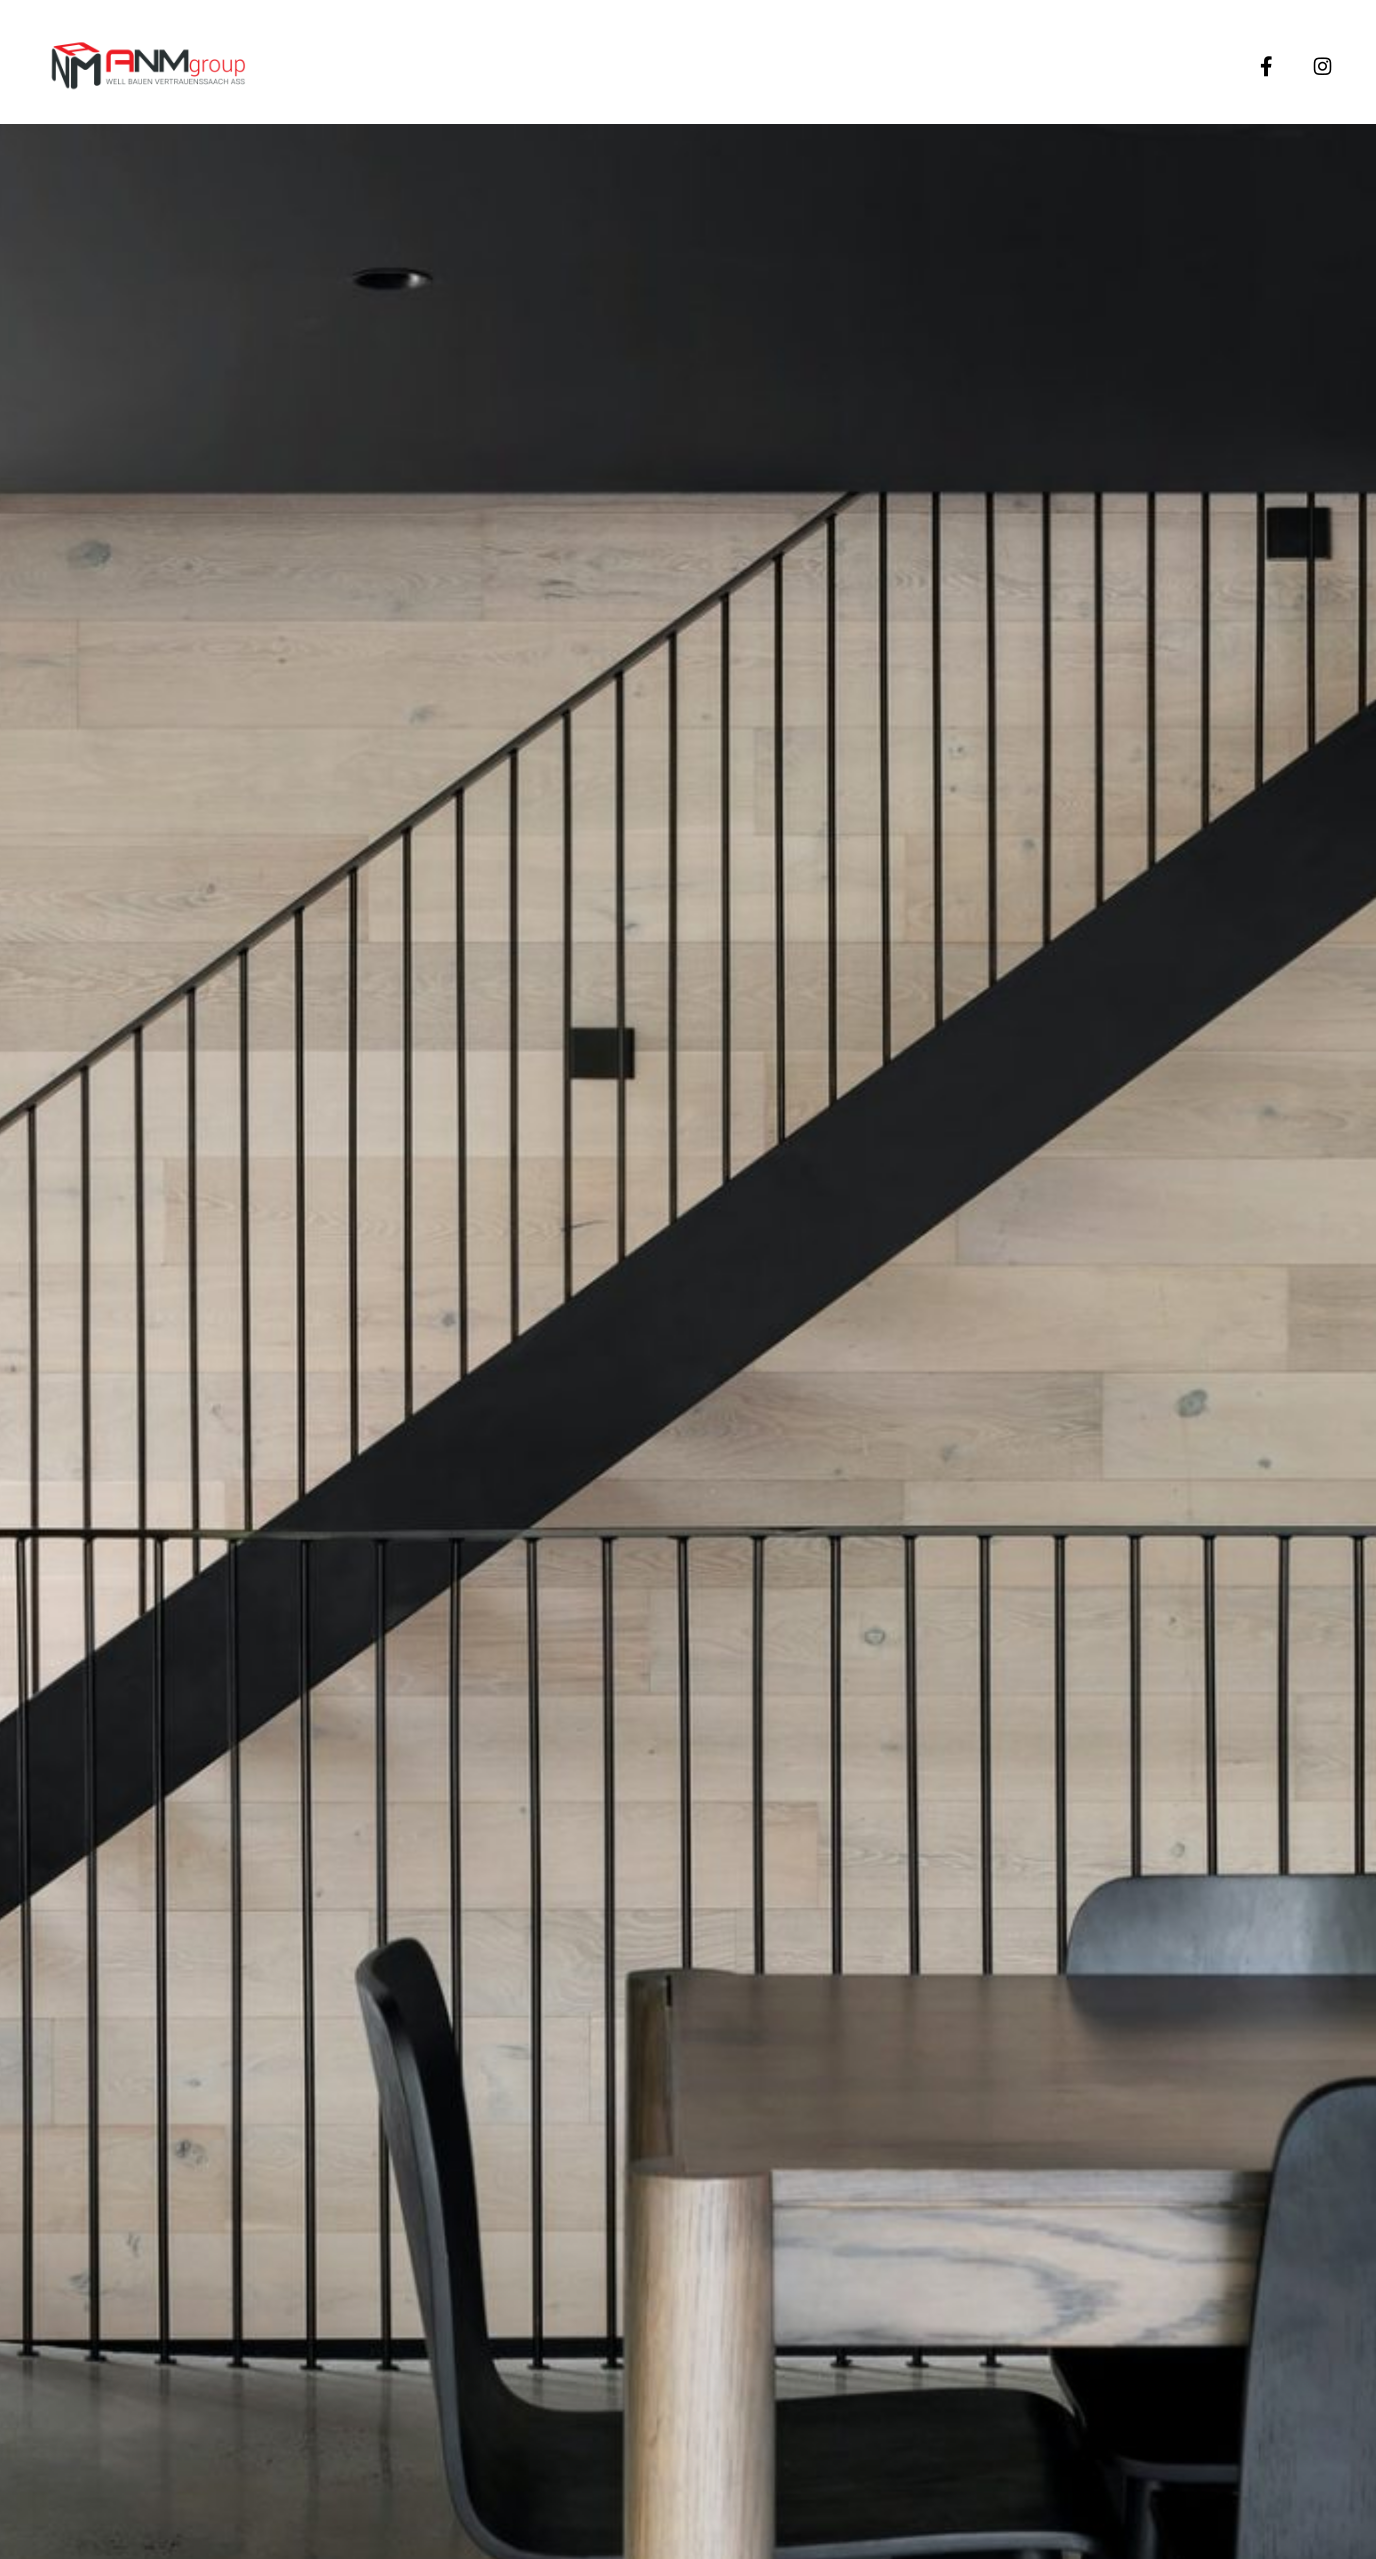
void draw(SkCanvas* canvas) {
    SkPaint paint;
    paint.setAntiAlias(true);
    auto paste = [&](const char* path, float x, float y, float w, float h) {
        auto image = SkImages::DeferredFromEncodedData(SkData::MakeFromFileName(path));
        canvas->drawImageRect(image, SkRect::MakeXYWH(x, y, w, h), SkSamplingOptions());
    };
    canvas->clear(SK_ColorWHITE);
    paste("pic1.png", 51, 42, 195, 48);
    paste("pic2.png", 1260, 56, 12, 21);
    paste("pic3.png", 1313, 57, 19, 18);
    paste("pic4.png", 0, 124, 1376, 2435);
}
